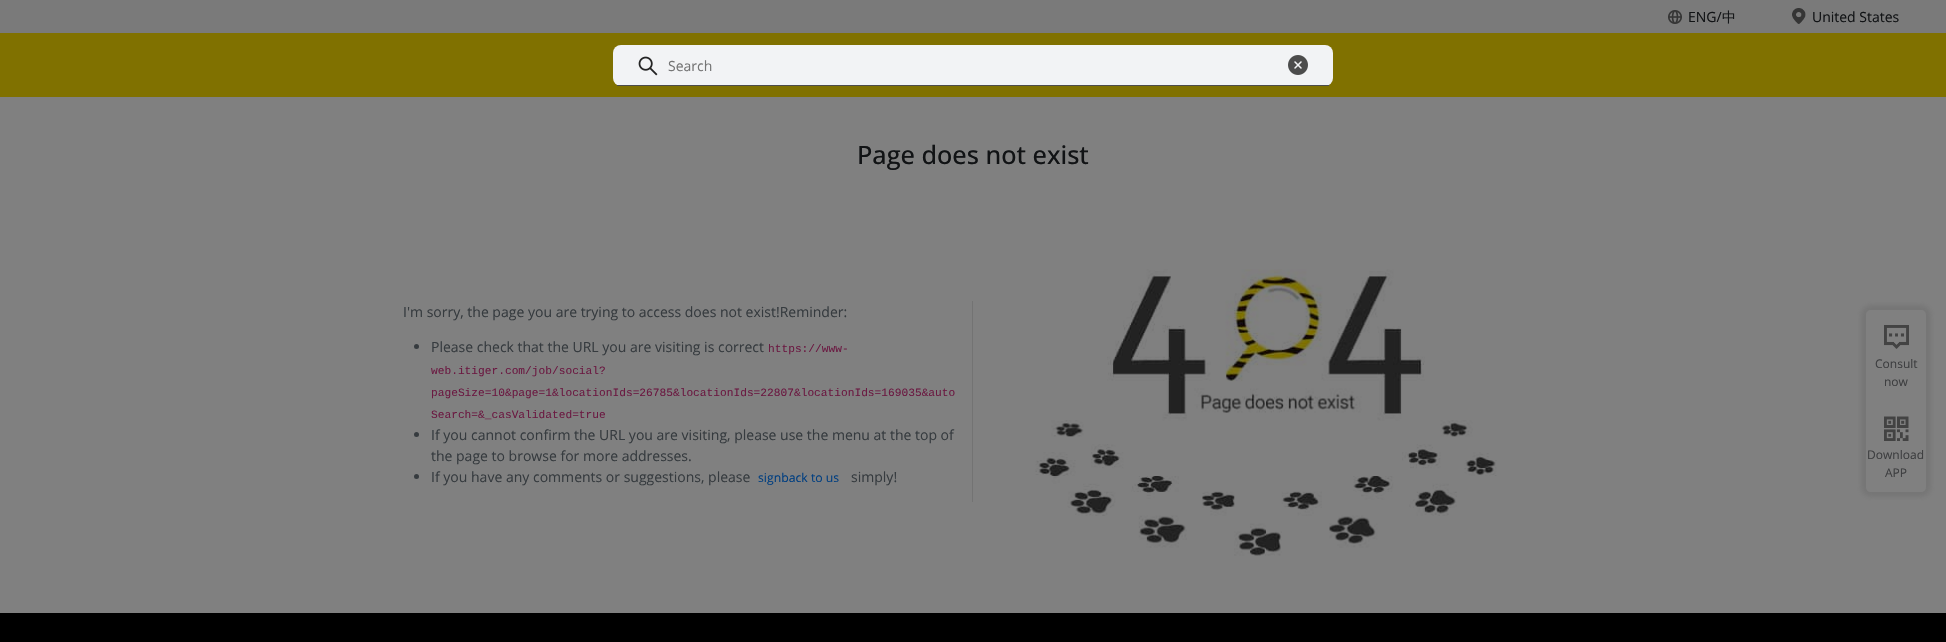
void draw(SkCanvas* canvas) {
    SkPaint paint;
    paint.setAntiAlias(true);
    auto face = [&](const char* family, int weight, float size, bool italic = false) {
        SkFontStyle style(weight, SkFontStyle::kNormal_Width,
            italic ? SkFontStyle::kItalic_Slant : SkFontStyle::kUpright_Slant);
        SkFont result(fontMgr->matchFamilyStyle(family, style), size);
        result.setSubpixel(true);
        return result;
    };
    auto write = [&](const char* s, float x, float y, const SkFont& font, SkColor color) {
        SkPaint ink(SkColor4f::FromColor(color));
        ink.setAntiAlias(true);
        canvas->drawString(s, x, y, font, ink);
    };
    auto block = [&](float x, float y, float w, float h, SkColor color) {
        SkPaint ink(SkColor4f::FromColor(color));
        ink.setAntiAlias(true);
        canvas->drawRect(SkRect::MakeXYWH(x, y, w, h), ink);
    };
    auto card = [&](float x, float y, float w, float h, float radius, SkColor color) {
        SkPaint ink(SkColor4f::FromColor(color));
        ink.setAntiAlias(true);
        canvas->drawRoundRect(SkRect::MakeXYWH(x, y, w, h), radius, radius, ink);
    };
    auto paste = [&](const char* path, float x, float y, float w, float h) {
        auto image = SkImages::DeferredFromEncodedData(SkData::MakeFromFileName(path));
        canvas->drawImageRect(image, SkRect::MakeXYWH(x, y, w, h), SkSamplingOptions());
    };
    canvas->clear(SkColorSetRGB(128, 128, 128));
    block(0, 0, 1946, 33, SkColorSetRGB(122, 122, 122));
    paste("pic1.png", 1668, 10, 14, 14);
    auto kFont1 = face("Open Sans", 400, 14);
    write("ENG/", 1688, 22, kFont1, SkColorSetRGB(17, 19, 21));
    auto kFont2 = face("WenQuanYi Zen Hei", 500, 14);
    write("中", 1722, 22, kFont2, SkColorSetRGB(17, 19, 21));
    paste("pic2.png", 1792, 8, 14, 16);
    write("United States", 1812, 22, kFont1, SkColorSetRGB(17, 19, 21));
    block(0, 33, 1946, 64, SkColorSetRGB(128, 113, 0));
    card(613, 45, 720, 41, 8, SkColorSetRGB(242, 243, 245));
    block(617, 85, 712, 1, SkColorSetRGB(76, 76, 76));
    paste("pic3.png", 638, 56, 20, 20);
    write("Search", 668, 71, kFont1, SkColorSetRGB(117, 117, 117));
    paste("pic4.png", 1288, 55, 20, 20);
    auto kFont3 = face("Open Sans", 500, 25.25f);
    write("Page does not exist", 857, 164, kFont3, SkColorSetRGB(17, 19, 21));
    block(972, 301, 1, 201, SkColorSetRGB(115, 115, 115));
    write("I'm sorry, the page you are trying to access does not exist!Reminder:", 403, 317, kFont1, SkColorSetRGB(54, 59, 63));
    paint.setColor(SkColorSetRGB(54, 59, 63));
    canvas->drawCircle(416.5f, 346.5f, 2.5f, paint);
    write("Please check that the URL you are visiting is correct", 431, 352, kFont1, SkColorSetRGB(54, 59, 63));
    auto kFont4 = face("Liberation Mono", 400, 11.2f);
    write("https://www-", 768, 352, kFont4, SkColorSetRGB(107, 26, 66));
    write("web.itiger.com/job/social?", 431, 374, kFont4, SkColorSetRGB(107, 26, 66));
    write("pageSize=10&page=1&locationIds=26785&locationIds=22807&locationIds=169035&auto", 431, 396, kFont4, SkColorSetRGB(107, 26, 66));
    write("Search=&_casValidated=true", 431, 418, kFont4, SkColorSetRGB(107, 26, 66));
    canvas->drawCircle(416.5f, 434.5f, 2.5f, paint);
    write("If you cannot confirm the URL you are visiting, please use the menu at the top of", 431, 440, kFont1, SkColorSetRGB(54, 59, 63));
    write("the page to browse for more addresses.", 431, 461, kFont1, SkColorSetRGB(54, 59, 63));
    canvas->drawCircle(416.5f, 476.5f, 2.5f, paint);
    write("If you have any comments or suggestions, please", 431, 482, kFont1, SkColorSetRGB(54, 59, 63));
    auto kFont5 = face("Open Sans", 400, 12.25f);
    write("signback to us", 758, 482, kFont5, SkColorSetRGB(0, 62, 128));
    write("simply!", 851, 482, kFont1, SkColorSetRGB(54, 59, 63));
    paste("pic5.png", 1035, 269, 462, 287);
    block(0, 613, 1946, 29, SK_ColorBLACK);
    canvas->save();
    canvas->clipPath(SkPathBuilder(SkPathFillType::kEvenOdd).moveTo(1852, 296).lineTo(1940, 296).lineTo(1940, 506).lineTo(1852, 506).close().moveTo(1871, 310).lineTo(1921, 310).cubicTo(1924, 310, 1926, 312, 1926, 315).lineTo(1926, 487).cubicTo(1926, 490, 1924, 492, 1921, 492).lineTo(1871, 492).cubicTo(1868, 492, 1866, 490, 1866, 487).lineTo(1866, 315).cubicTo(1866, 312, 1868, 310, 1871, 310).close().detach(), true);
    paint.setColor(SkColorSetARGB(51, 75, 75, 75));
    paint.setMaskFilter(SkMaskFilter::MakeBlur(kNormal_SkBlurStyle, 2.5f));
    canvas->drawRoundRect(SkRect::MakeXYWH(1861, 305, 70, 192), 10, 10, paint);
    paint.setMaskFilter(nullptr);
    canvas->restore();
    paste("pic6.png", 1884, 325, 25, 24);
    auto kFont6 = face("Open Sans", 400, 12);
    write("Consult", 1875, 368, kFont6, SkColorSetRGB(61, 62, 64));
    write("now", 1884, 386, kFont6, SkColorSetRGB(61, 62, 64));
    paste("pic7.png", 1884, 416, 25, 25);
    write("Download", 1867, 459, kFont6, SkColorSetRGB(61, 62, 64));
    write("APP", 1885, 477, kFont6, SkColorSetRGB(61, 62, 64));
}
